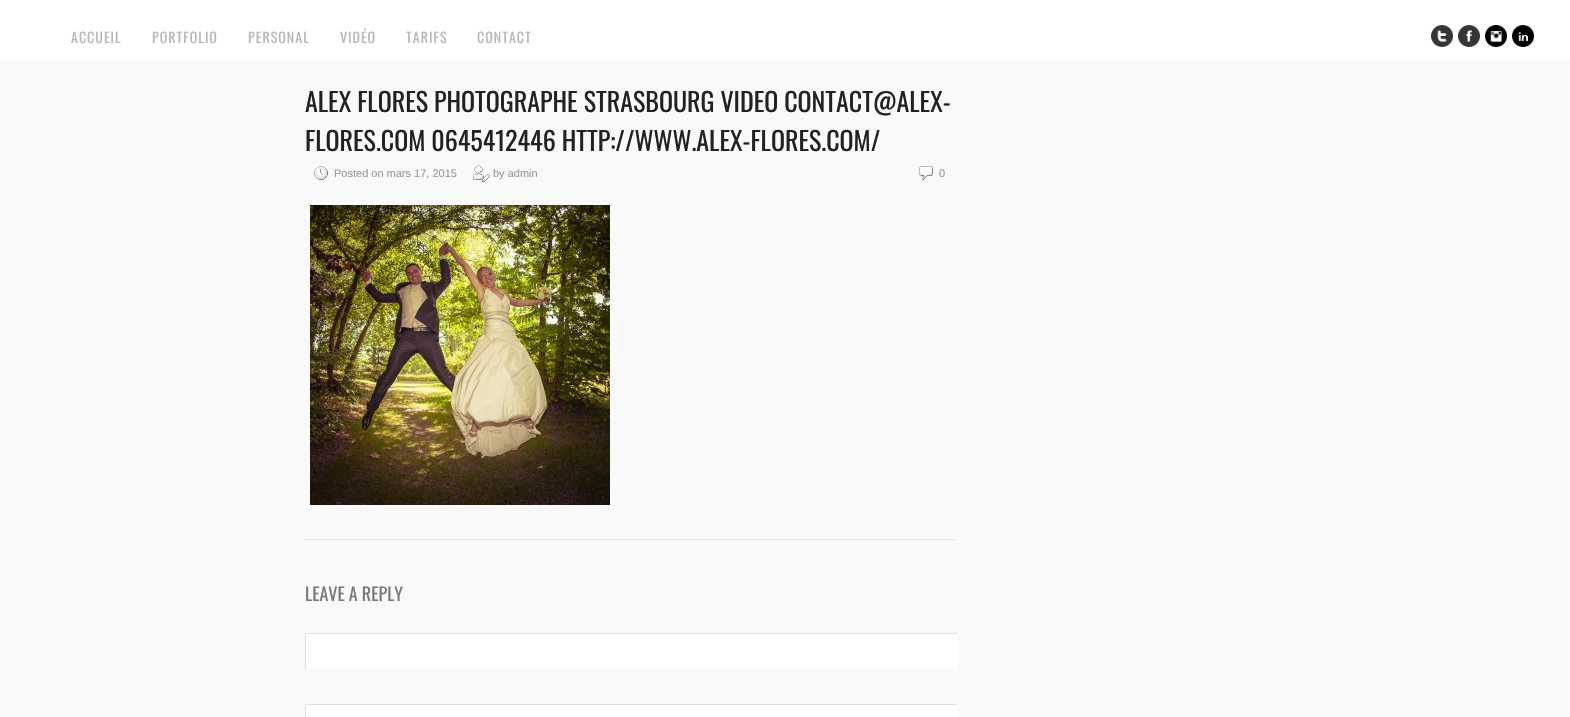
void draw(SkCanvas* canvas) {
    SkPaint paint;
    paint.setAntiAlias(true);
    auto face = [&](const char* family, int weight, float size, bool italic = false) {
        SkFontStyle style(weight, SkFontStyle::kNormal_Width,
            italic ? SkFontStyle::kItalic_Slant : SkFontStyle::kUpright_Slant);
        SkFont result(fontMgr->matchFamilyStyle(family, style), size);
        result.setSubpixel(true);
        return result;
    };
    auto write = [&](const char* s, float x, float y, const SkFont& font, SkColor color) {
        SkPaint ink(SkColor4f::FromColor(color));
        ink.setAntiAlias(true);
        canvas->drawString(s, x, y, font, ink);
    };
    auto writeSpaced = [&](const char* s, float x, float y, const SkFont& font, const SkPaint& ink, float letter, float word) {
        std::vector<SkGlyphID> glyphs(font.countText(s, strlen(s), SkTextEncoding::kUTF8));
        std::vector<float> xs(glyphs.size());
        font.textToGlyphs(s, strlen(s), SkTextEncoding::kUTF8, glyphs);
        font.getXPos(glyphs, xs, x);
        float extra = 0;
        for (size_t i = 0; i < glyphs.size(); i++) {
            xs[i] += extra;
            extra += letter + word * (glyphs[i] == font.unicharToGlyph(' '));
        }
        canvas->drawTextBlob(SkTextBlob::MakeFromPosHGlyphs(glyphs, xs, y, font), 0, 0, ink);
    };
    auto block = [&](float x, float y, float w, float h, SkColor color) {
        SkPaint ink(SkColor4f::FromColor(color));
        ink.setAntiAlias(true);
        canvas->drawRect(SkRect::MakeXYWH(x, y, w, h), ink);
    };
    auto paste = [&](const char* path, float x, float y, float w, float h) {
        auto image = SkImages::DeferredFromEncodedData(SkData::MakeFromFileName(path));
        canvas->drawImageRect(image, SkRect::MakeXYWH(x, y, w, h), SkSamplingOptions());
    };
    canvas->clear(SK_ColorWHITE);
    auto kFont1 = face("Oswald", 400, 14);
    paint.setColor(SkColorSetRGB(183, 183, 183));
    writeSpaced("ACCUEIL", 71, 43, kFont1, paint, 1, 0);
    writeSpaced("PORTFOLIO", 152, 43, kFont1, paint, 1, 0);
    writeSpaced("PERSONAL", 248, 43, kFont1, paint, 1, 0);
    writeSpaced("VIDÉO", 340, 43, kFont1, paint, 1, 0);
    writeSpaced("TARIFS", 406, 43, kFont1, paint, 1, 0);
    writeSpaced("CONTACT", 477, 43, kFont1, paint, 1, 0);
    paste("pic1.png", 1431, 25, 22, 22);
    paste("pic2.png", 1458, 25, 22, 22);
    paste("pic3.png", 1485, 25, 22, 22);
    paste("pic4.png", 1512, 25, 22, 22);
    block(0, 61, 1570, 656, SkColorSetRGB(249, 249, 249));
    block(305, 539, 650, 1, SkColorSetRGB(224, 224, 224));
    auto kFont2 = face("Oswald", 400, 26);
    write("ALEX FLORES PHOTOGRAPHE STRASBOURG VIDEO CONTACT@ALEX-", 305, 112, kFont2, SkColorSetRGB(34, 34, 34));
    write("FLORES.COM 0645412446 HTTP://WWW.ALEX-FLORES.COM/", 305, 151, kFont2, SkColorSetRGB(34, 34, 34));
    paste("pic5.png", 314, 166, 14, 14);
    auto kFont3 = face("Liberation Sans", 400, 11);
    write("Posted on mars 17, 2015", 334, 177, kFont3, SkColorSetRGB(153, 153, 153));
    paste("pic6.png", 473, 165, 17, 17);
    write("by admin", 493, 177, kFont3, SkColorSetRGB(153, 153, 153));
    paste("pic7.png", 919, 166, 14, 14);
    write("0", 939, 177, kFont3, SkColorSetRGB(153, 153, 153));
    paste("pic8.png", 310, 205, 300, 300);
    auto kFont4 = face("Oswald", 400, 18);
    write("LEAVE A REPLY", 305, 601, kFont4, SkColorSetRGB(121, 121, 121));
    block(306, 634, 651, 35, SK_ColorWHITE);
    block(305, 633, 653, 1, SkColorSetRGB(224, 224, 224));
    block(957, 633, 1, 36, SK_ColorWHITE);
    block(305, 633, 1, 36, SkColorSetRGB(224, 224, 224));
    block(306, 705, 651, 12, SK_ColorWHITE);
    block(305, 704, 653, 1, SkColorSetRGB(224, 224, 224));
    block(957, 704, 1, 13, SK_ColorWHITE);
    block(305, 704, 1, 13, SkColorSetRGB(224, 224, 224));
}
